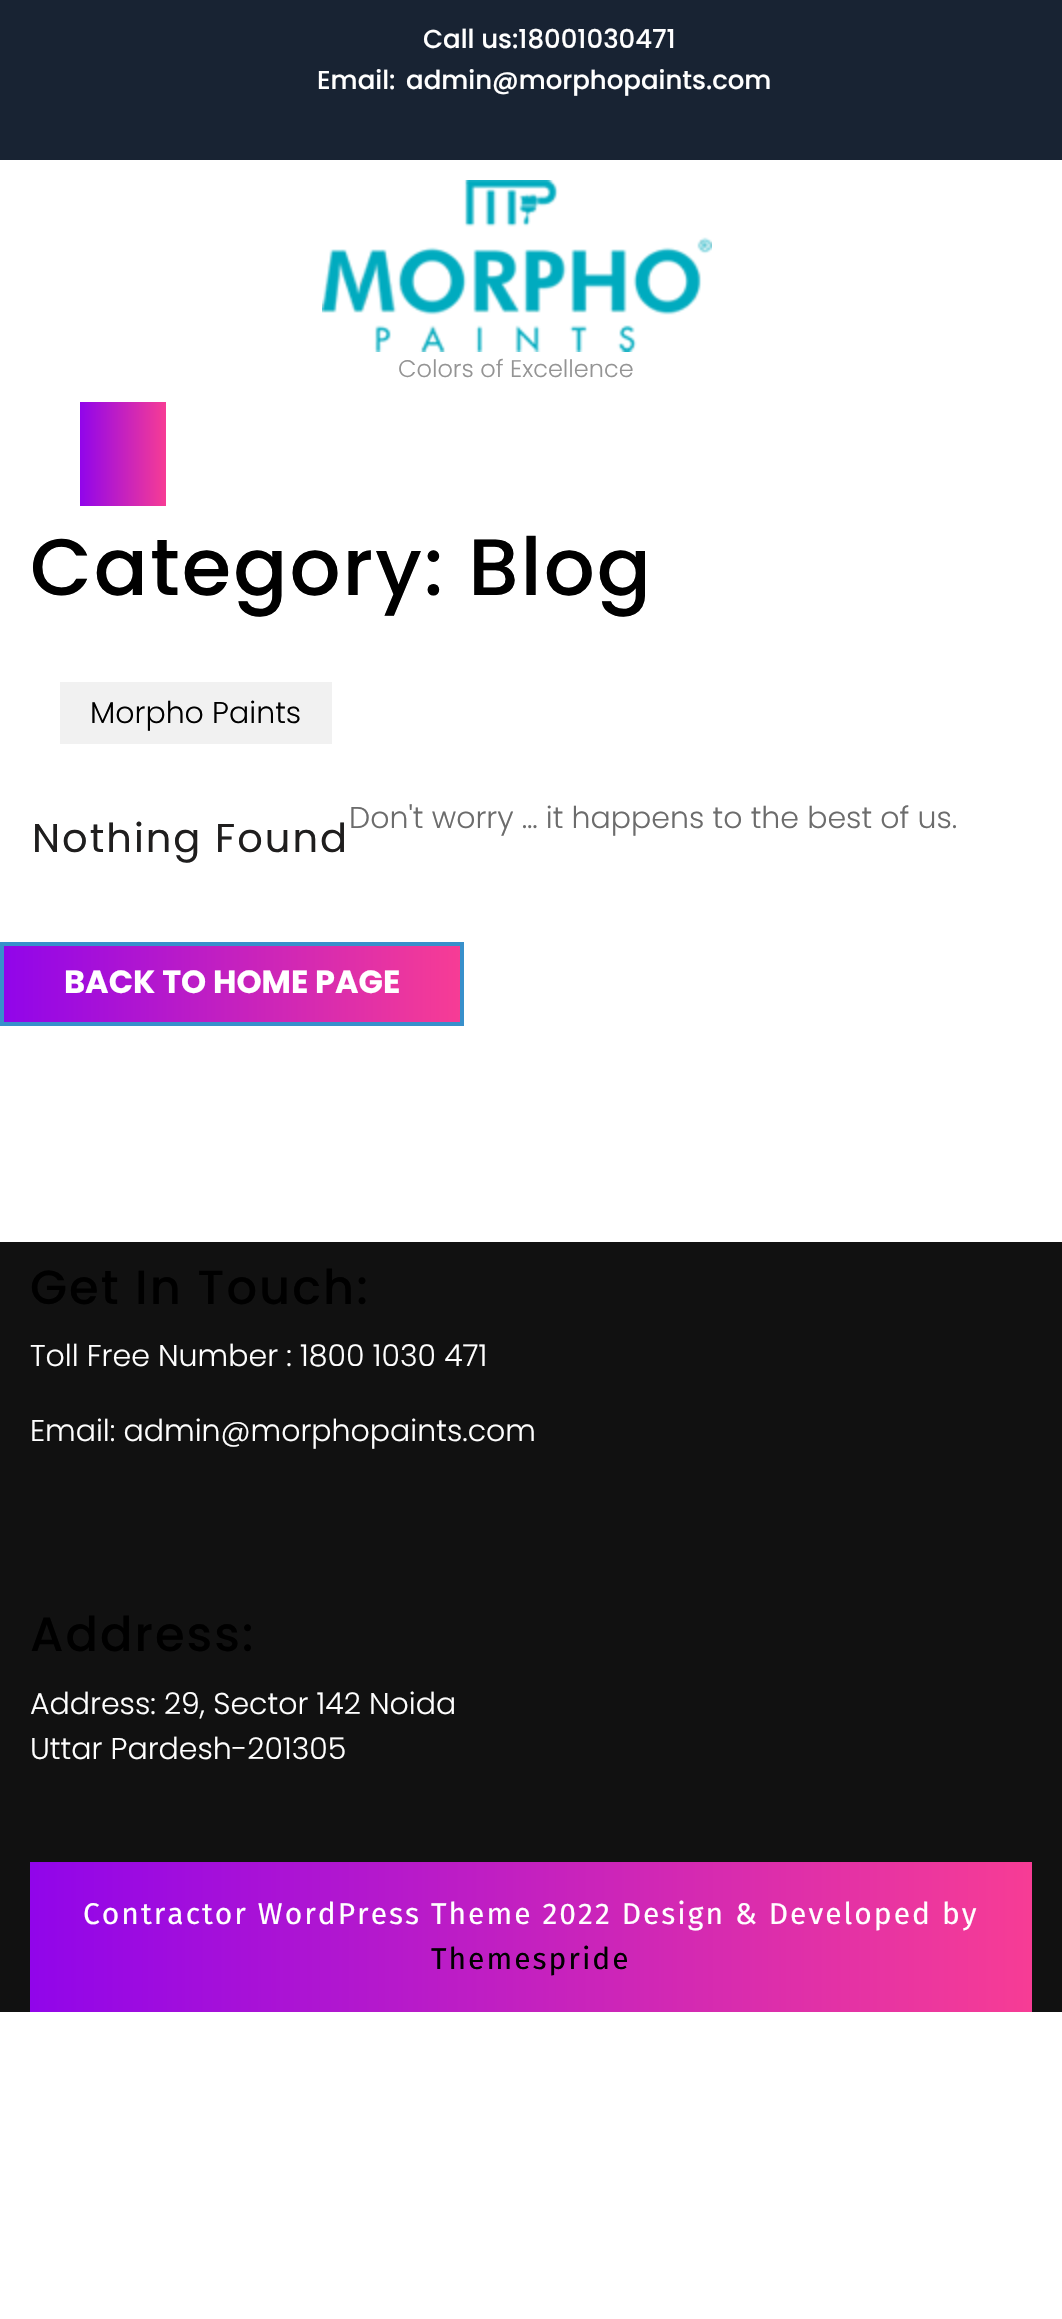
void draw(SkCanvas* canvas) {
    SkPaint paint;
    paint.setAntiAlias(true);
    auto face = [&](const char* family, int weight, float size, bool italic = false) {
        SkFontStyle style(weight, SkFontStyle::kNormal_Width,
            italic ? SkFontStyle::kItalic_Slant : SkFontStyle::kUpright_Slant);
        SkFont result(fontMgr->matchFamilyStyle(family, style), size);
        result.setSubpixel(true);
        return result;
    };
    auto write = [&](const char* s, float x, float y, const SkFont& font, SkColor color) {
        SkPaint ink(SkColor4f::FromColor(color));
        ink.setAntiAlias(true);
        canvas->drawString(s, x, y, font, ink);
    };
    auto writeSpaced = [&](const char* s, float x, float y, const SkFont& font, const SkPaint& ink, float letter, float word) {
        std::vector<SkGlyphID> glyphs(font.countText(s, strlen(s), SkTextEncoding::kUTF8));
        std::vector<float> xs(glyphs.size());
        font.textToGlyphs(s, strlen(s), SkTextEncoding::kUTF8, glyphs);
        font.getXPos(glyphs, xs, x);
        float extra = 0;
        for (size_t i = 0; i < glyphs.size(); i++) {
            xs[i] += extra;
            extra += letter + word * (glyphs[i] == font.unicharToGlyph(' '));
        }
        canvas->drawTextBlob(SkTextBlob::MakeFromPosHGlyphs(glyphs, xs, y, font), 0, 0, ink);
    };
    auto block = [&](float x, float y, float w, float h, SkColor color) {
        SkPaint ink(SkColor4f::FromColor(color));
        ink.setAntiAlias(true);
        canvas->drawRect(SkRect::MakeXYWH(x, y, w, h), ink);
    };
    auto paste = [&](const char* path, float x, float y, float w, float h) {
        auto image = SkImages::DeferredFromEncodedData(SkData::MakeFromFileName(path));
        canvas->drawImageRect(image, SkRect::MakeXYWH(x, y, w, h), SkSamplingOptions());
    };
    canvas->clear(SK_ColorWHITE);
    block(0, 0, 1062, 160, SkColorSetRGB(24, 35, 51));
    auto kFont1 = face("Poppins", 500, 26);
    write("Call us:18001030471", 423, 48, kFont1, SK_ColorWHITE);
    write("Email:", 317, 89, kFont1, SK_ColorWHITE);
    write("admin@morphopaints.com", 406, 89, kFont1, SK_ColorWHITE);
    paste("pic1.png", 322, 180, 390, 172);
    auto kFont2 = face("Poppins", 300, 24);
    write("Colors of Excellence", 398, 377, kFont2, SkColorSetRGB(148, 148, 148));
    {
        const SkColor colors[] = {SkColorSetRGB(145, 5, 234), SkColorSetRGB(247, 60, 149)};
        const float stops[] = {0, 1};
        const SkPoint ends[] = {{80, 454}, {166, 454}};
        paint.setShader(SkGradientShader::MakeLinear(ends, colors, stops, 2, SkTileMode::kClamp));
        paint.setAlpha(255);
    }
    canvas->drawRect(SkRect::MakeXYWH(80, 402, 86, 104), paint);
    auto kFont3 = face("Poppins", 500, 80);
    paint.setShader(nullptr);
    paint.setColor(SK_ColorBLACK);
    writeSpaced("Category: Blog", 30, 595, kFont3, paint, 2, 0);
    block(60, 682, 272, 62, SkColorSetRGB(241, 241, 241));
    auto kFont4 = face("Poppins", 300, 30);
    write("Morpho Paints", 90, 723, kFont4, SK_ColorBLACK);
    auto kFont5 = face("Poppins", 400, 40);
    paint.setColor(SkColorSetRGB(31, 30, 30));
    writeSpaced("Nothing Found", 32, 852, kFont5, paint, 2, 0);
    write("Don't worry … it happens to the best of us.", 349, 828, kFont4, SkColorSetRGB(108, 108, 108));
    {
        const SkColor colors[] = {SkColorSetRGB(145, 5, 234), SkColorSetRGB(247, 60, 149)};
        const float stops[] = {0, 1};
        const SkPoint ends[] = {{4, 984}, {460, 984}};
        paint.setShader(SkGradientShader::MakeLinear(ends, colors, stops, 2, SkTileMode::kClamp));
        paint.setAlpha(255);
    }
    canvas->drawRect(SkRect::MakeXYWH(4, 946, 456, 76), paint);
    paint.setStyle(SkPaint::kStroke_Style);
    paint.setStrokeWidth(4);
    paint.setShader(nullptr);
    paint.setColor(SkColorSetRGB(56, 144, 203));
    canvas->drawRect(SkRect::MakeXYWH(2, 944, 460, 80), paint);
    auto kFont6 = face("Poppins", 700, 32);
    write("BACK TO HOME PAGE", 64, 993, kFont6, SK_ColorWHITE);
    block(0, 1242, 1062, 770, SkColorSetRGB(17, 17, 17));
    auto kFont7 = face("Poppins", 500, 48);
    paint.setStyle(SkPaint::kFill_Style);
    paint.setColor(SK_ColorBLACK);
    writeSpaced("Get In Touch:", 30, 1304, kFont7, paint, 2, 0);
    write("Toll Free Number : 1800 1030 471", 30, 1366, kFont4, SK_ColorWHITE);
    write("Email: admin@morphopaints.com", 30, 1441, kFont4, SK_ColorWHITE);
    writeSpaced("Address:", 30, 1651, kFont7, paint, 2, 0);
    write("Address: 29, Sector 142 Noida", 30, 1714, kFont4, SK_ColorWHITE);
    write("Uttar Pardesh-201305", 30, 1759, kFont4, SK_ColorWHITE);
    {
        const SkColor colors[] = {SkColorSetRGB(145, 5, 234), SkColorSetRGB(247, 60, 149)};
        const float stops[] = {0, 1};
        const SkPoint ends[] = {{30, 1937}, {1032, 1937}};
        paint.setShader(SkGradientShader::MakeLinear(ends, colors, stops, 2, SkTileMode::kClamp));
        paint.setAlpha(255);
    }
    canvas->drawRect(SkRect::MakeXYWH(30, 1862, 1002, 150), paint);
    auto kFont8 = face("Fira Sans", 400, 30);
    paint.setShader(nullptr);
    paint.setColor(SK_ColorWHITE);
    writeSpaced("Contractor WordPress Theme 2022 Design & Developed by", 83, 1924, kFont8, paint, 2, 0);
    paint.setColor(SK_ColorBLACK);
    writeSpaced("Themespride", 431, 1969, kFont8, paint, 2, 0);
}
